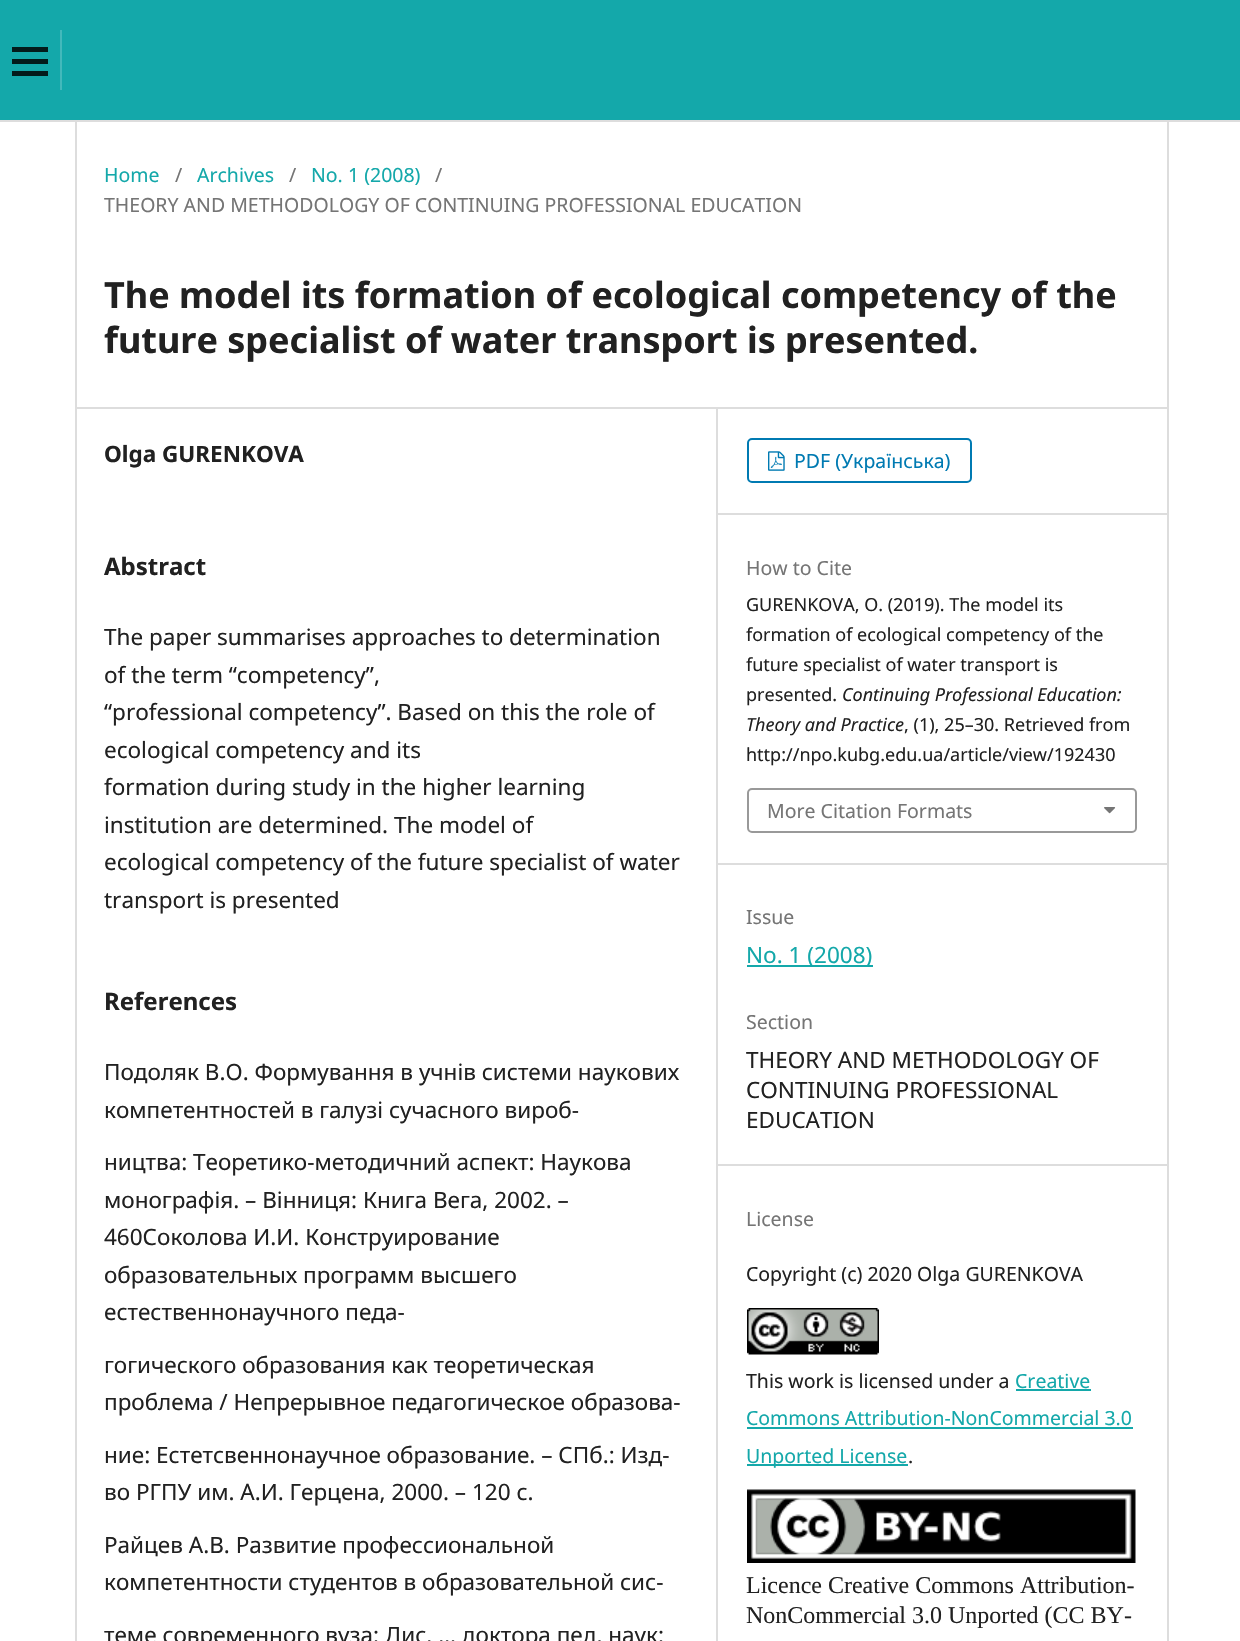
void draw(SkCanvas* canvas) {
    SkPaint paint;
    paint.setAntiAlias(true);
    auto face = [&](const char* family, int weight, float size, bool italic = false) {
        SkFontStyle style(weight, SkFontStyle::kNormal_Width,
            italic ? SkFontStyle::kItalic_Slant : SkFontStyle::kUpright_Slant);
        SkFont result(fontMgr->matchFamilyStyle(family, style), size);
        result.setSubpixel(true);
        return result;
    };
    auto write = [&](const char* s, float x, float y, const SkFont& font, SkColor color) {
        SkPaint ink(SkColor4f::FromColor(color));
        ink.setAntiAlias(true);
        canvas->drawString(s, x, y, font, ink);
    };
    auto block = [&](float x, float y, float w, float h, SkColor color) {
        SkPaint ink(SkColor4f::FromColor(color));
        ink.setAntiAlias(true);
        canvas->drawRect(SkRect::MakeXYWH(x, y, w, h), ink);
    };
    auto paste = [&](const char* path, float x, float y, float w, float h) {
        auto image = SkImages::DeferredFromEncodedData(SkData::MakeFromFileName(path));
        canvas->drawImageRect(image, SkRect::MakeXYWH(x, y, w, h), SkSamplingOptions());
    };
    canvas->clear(SK_ColorWHITE);
    block(0, 0, 1240, 120, SkColorSetRGB(20, 168, 170));
    block(0, 120, 1240, 2, SkColorSetRGB(221, 221, 221));
    block(60, 30, 2, 60, SkColorSetRGB(67, 185, 187));
    block(12, 71, 36, 5, SkColorSetRGB(3, 27, 27));
    block(12, 47, 36, 5, SkColorSetRGB(3, 27, 27));
    block(12, 59, 36, 5, SkColorSetRGB(3, 27, 27));
    block(75, 407, 1092, 2, SkColorSetRGB(221, 221, 221));
    block(75, 122, 2, 1519, SkColorSetRGB(221, 221, 221));
    auto kFont1 = face("Noto Sans", 400, 19.5f);
    write("Home", 104, 182, kFont1, SkColorSetRGB(20, 168, 170));
    write("/", 175, 182, kFont1, SkColorSetRGB(117, 117, 117));
    write("Archives", 197, 182, kFont1, SkColorSetRGB(20, 168, 170));
    write("/", 289, 182, kFont1, SkColorSetRGB(117, 117, 117));
    write("No. 1 (2008)", 311, 182, kFont1, SkColorSetRGB(20, 168, 170));
    write("/", 435, 182, kFont1, SkColorSetRGB(117, 117, 117));
    write("THEORY AND METHODOLOGY OF CONTINUING PROFESSIONAL EDUCATION", 104, 212, kFont1, SkColorSetRGB(117, 117, 117));
    auto kFont2 = face("Noto Sans", 700, 36);
    write("The model its formation of ecological competency of the", 104, 308, kFont2, SkColorSetRGB(33, 33, 33));
    write("future specialist of water transport is presented.", 104, 353, kFont2, SkColorSetRGB(33, 33, 33));
    block(716, 408, 2, 1233, SkColorSetRGB(221, 221, 221));
    auto kFont3 = face("Noto Sans", 700, 22.5f);
    write("Olga GURENKOVA", 104, 462, kFont3, SkColorSetRGB(33, 33, 33));
    auto kFont4 = face("Noto Sans", 700, 24);
    write("Abstract", 104, 575, kFont4, SkColorSetRGB(33, 33, 33));
    auto kFont5 = face("Noto Sans", 400, 22.5f);
    write("The paper summarises approaches to determination", 104, 645, kFont5, SkColorSetRGB(33, 33, 33));
    write("of the term “competency”,", 104, 683, kFont5, SkColorSetRGB(33, 33, 33));
    write("“professional competency”. Based on this the role of", 104, 720, kFont5, SkColorSetRGB(33, 33, 33));
    write("ecological competency and its", 104, 758, kFont5, SkColorSetRGB(33, 33, 33));
    write("formation during study in the higher learning", 104, 795, kFont5, SkColorSetRGB(33, 33, 33));
    write("institution are determined. The model of", 104, 833, kFont5, SkColorSetRGB(33, 33, 33));
    write("ecological competency of the future specialist of water", 104, 870, kFont5, SkColorSetRGB(33, 33, 33));
    write("transport is presented", 104, 908, kFont5, SkColorSetRGB(33, 33, 33));
    write("References", 104, 1010, kFont4, SkColorSetRGB(33, 33, 33));
    write("Подоляк В.О. Формування в учнів системи наукових", 104, 1080, kFont5, SkColorSetRGB(33, 33, 33));
    write("компетентностей в галузі сучасного вироб-", 104, 1118, kFont5, SkColorSetRGB(33, 33, 33));
    write("ництва: Теоретико-методичний аспект: Наукова", 104, 1170, kFont5, SkColorSetRGB(33, 33, 33));
    write("монографія. – Вінниця: Книга Вега, 2002. –", 104, 1208, kFont5, SkColorSetRGB(33, 33, 33));
    write("460Соколова И.И. Конструирование", 104, 1245, kFont5, SkColorSetRGB(33, 33, 33));
    write("образовательных программ высшего", 104, 1283, kFont5, SkColorSetRGB(33, 33, 33));
    write("естественнонаучного педа-", 104, 1320, kFont5, SkColorSetRGB(33, 33, 33));
    write("гогического образования как теоретическая", 104, 1373, kFont5, SkColorSetRGB(33, 33, 33));
    write("проблема / Непрерывное педагогическое образова-", 104, 1410, kFont5, SkColorSetRGB(33, 33, 33));
    write("ние: Естетсвеннонаучное образование. – СПб.: Изд-", 104, 1463, kFont5, SkColorSetRGB(33, 33, 33));
    write("во РГПУ им. А.И. Герцена, 2000. – 120 с.", 104, 1500, kFont5, SkColorSetRGB(33, 33, 33));
    write("Райцев А.В. Развитие профессиональной", 104, 1553, kFont5, SkColorSetRGB(33, 33, 33));
    write("компетентности студентов в образовательной сис-", 104, 1590, kFont5, SkColorSetRGB(33, 33, 33));
    write("теме современного вуза: Дис. … доктора пед. наук:", 104, 1643, kFont5, SkColorSetRGB(33, 33, 33));
    block(717, 513, 450, 2, SkColorSetRGB(221, 221, 221));
    paint.setStyle(SkPaint::kStroke_Style);
    paint.setStrokeWidth(2);
    paint.setColor(SkColorSetRGB(0, 122, 178));
    canvas->drawRoundRect(SkRect::MakeXYWH(748, 439, 223, 43), 4, 4, paint);
    paste("pic1.png", 768, 451, 17, 20);
    write("PDF (Українська)", 794, 468, kFont1, SkColorSetRGB(0, 122, 178));
    block(717, 863, 450, 2, SkColorSetRGB(221, 221, 221));
    write("How to Cite", 746, 575, kFont1, SkColorSetRGB(117, 117, 117));
    auto kFont6 = face("Noto Sans", 400, 18);
    write("GURENKOVA, O. (2019). The model its", 746, 611, kFont6, SkColorSetRGB(33, 33, 33));
    write("formation of ecological competency of the", 746, 641, kFont6, SkColorSetRGB(33, 33, 33));
    write("future specialist of water transport is", 746, 671, kFont6, SkColorSetRGB(33, 33, 33));
    write("presented.", 746, 701, kFont6, SkColorSetRGB(33, 33, 33));
    auto kFont7 = face("Noto Sans", 400, 18, true);
    write("Continuing Professional Education:", 842, 701, kFont7, SkColorSetRGB(33, 33, 33));
    write("Theory and Practice", 746, 731, kFont7, SkColorSetRGB(33, 33, 33));
    write(", (1), 25–30. Retrieved from", 904, 731, kFont6, SkColorSetRGB(33, 33, 33));
    write("http://npo.kubg.edu.ua/article/view/192430", 746, 761, kFont6, SkColorSetRGB(33, 33, 33));
    paint.setColor(SkColorSetRGB(153, 153, 153));
    canvas->drawRoundRect(SkRect::MakeXYWH(748, 789, 388, 43), 4, 4, paint);
    write("More Citation Formats", 767, 818, kFont1, SkColorSetRGB(117, 117, 117));
    paste("pic2.png", 1104, 807, 12, 7);
    block(717, 1164, 450, 2, SkColorSetRGB(221, 221, 221));
    write("Issue", 746, 924, kFont1, SkColorSetRGB(117, 117, 117));
    block(747, 965, 126, 2, SkColorSetRGB(20, 168, 170));
    write("No. 1 (2008)", 746, 963, kFont5, SkColorSetRGB(20, 168, 170));
    write("Section", 746, 1029, kFont1, SkColorSetRGB(117, 117, 117));
    write("THEORY AND METHODOLOGY OF", 746, 1068, kFont5, SkColorSetRGB(33, 33, 33));
    write("CONTINUING PROFESSIONAL", 746, 1098, kFont5, SkColorSetRGB(33, 33, 33));
    write("EDUCATION", 746, 1128, kFont5, SkColorSetRGB(33, 33, 33));
    write("License", 746, 1226, kFont1, SkColorSetRGB(117, 117, 117));
    write("Copyright (c) 2020 Olga GURENKOVA", 746, 1281, kFont1, SkColorSetRGB(33, 33, 33));
    paste("pic3.png", 747, 1308, 132, 47);
    write("This work is licensed under a", 746, 1388, kFont1, SkColorSetRGB(33, 33, 33));
    write("Creative", 1015, 1388, kFont1, SkColorSetRGB(20, 168, 170));
    block(1016, 1389, 75, 2, SkColorSetRGB(20, 168, 170));
    write("Commons Attribution-NonCommercial 3.0", 746, 1425, kFont1, SkColorSetRGB(20, 168, 170));
    block(747, 1427, 386, 2, SkColorSetRGB(20, 168, 170));
    block(747, 1464, 161, 2, SkColorSetRGB(20, 168, 170));
    write("Unported License", 746, 1463, kFont1, SkColorSetRGB(20, 168, 170));
    write(".", 908, 1463, kFont1, SkColorSetRGB(33, 33, 33));
    paste("pic4.png", 747, 1489, 389, 74);
    auto kFont8 = face("Liberation Serif", 400, 24);
    write("Licence Creative Commons Attribution-", 746, 1593, kFont8, SkColorSetRGB(33, 33, 33));
    write("NonCommercial 3.0 Unported (CC BY-", 746, 1623, kFont8, SkColorSetRGB(33, 33, 33));
    block(1167, 122, 2, 1519, SkColorSetRGB(221, 221, 221));
}
